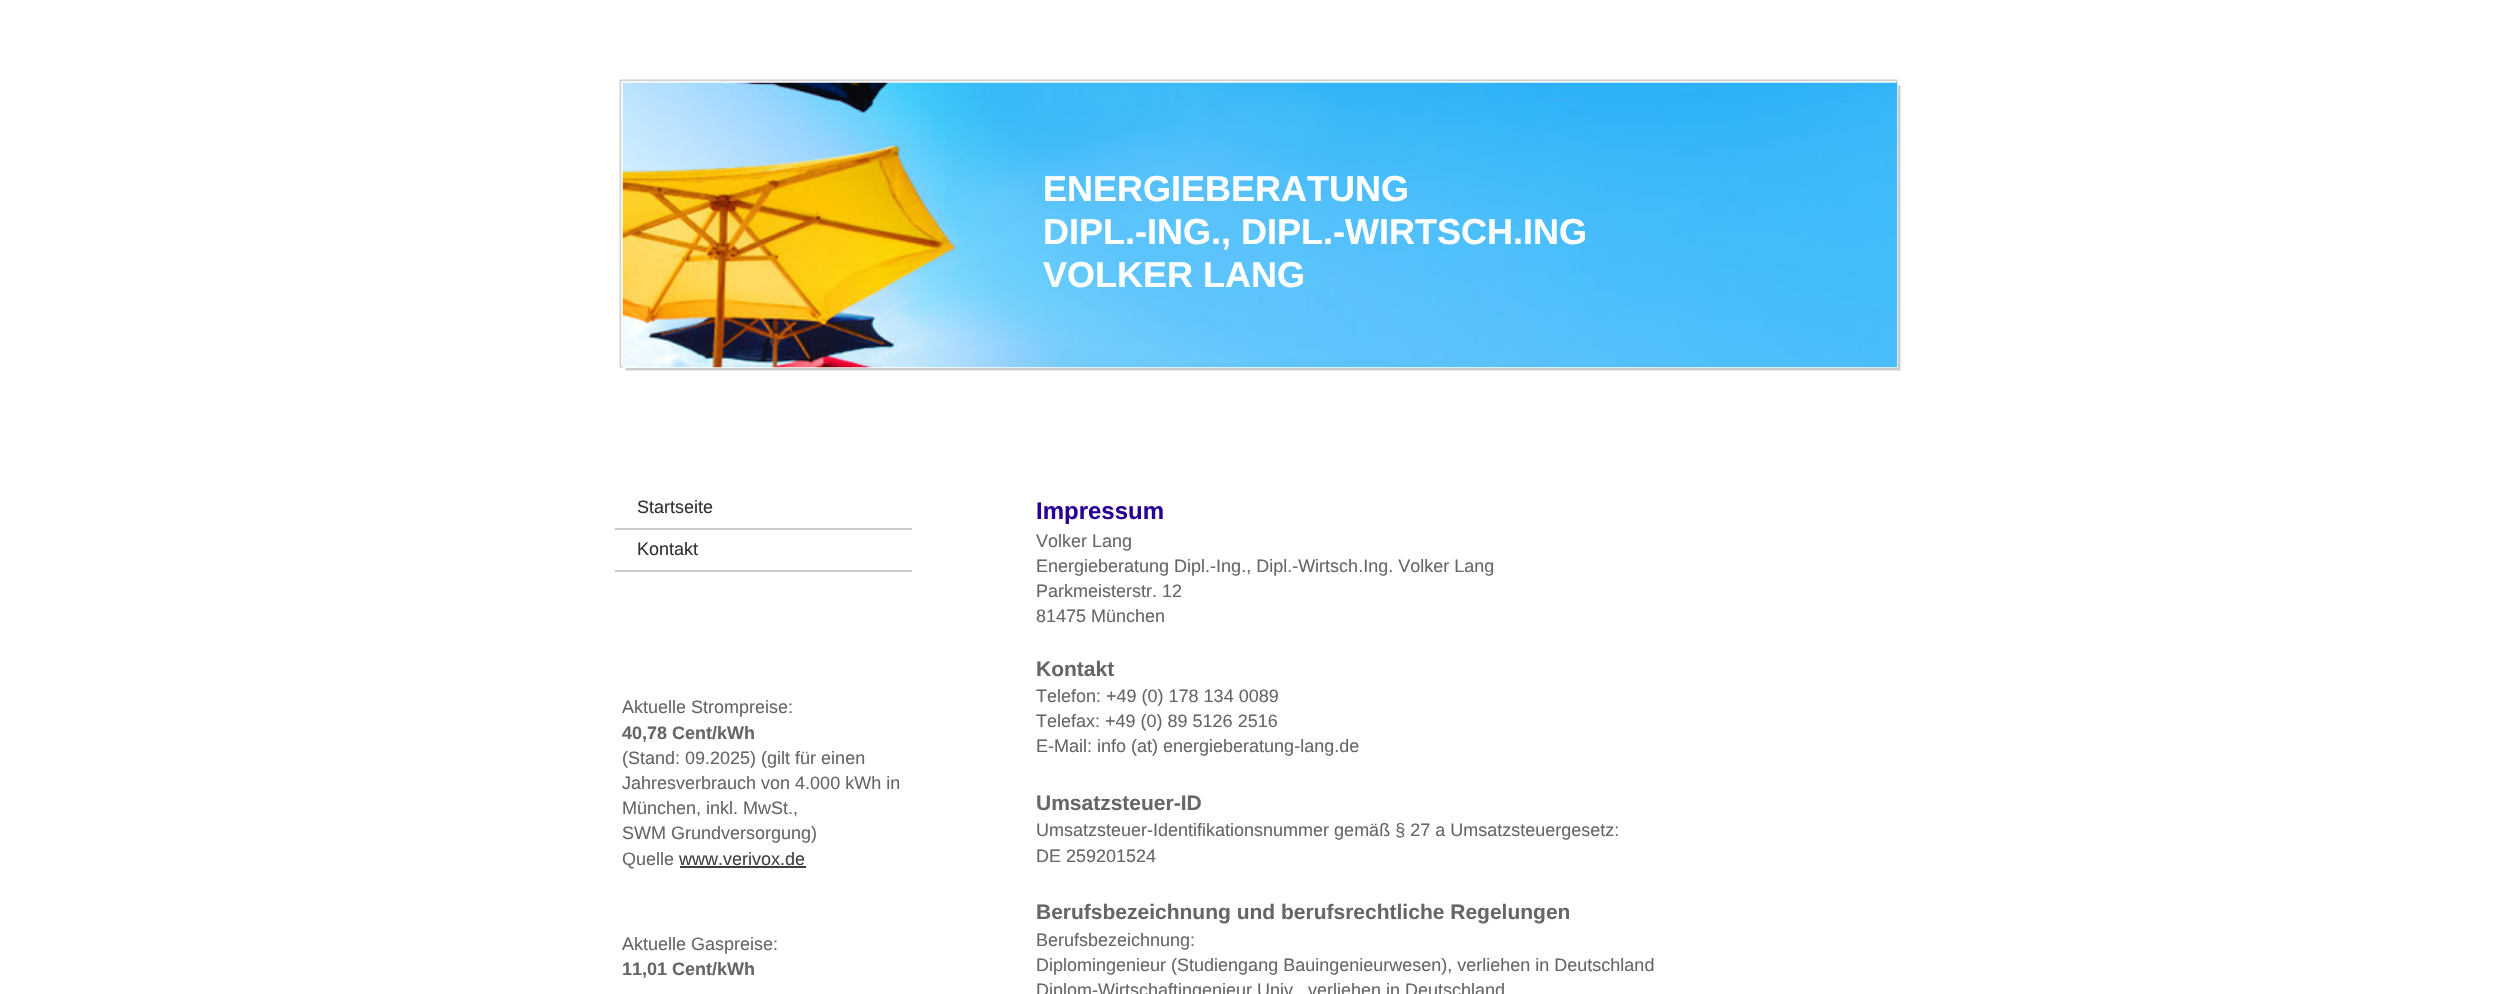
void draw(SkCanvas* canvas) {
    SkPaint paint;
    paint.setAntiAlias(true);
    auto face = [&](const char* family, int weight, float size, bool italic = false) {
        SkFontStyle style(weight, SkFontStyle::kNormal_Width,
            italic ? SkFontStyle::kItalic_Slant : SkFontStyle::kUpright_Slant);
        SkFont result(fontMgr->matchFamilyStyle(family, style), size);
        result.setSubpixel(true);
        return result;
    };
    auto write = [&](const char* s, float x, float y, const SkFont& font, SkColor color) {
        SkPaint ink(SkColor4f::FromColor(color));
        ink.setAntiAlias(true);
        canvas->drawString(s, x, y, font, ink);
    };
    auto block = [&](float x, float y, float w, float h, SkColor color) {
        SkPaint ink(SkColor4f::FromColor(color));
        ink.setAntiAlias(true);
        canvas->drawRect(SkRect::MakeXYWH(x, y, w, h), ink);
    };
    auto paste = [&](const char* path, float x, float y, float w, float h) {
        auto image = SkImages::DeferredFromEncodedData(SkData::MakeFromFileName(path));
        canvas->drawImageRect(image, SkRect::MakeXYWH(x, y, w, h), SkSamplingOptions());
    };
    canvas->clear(SK_ColorWHITE);
    paste("pic1.png", 619, 79, 1282, 292);
    block(623, 83, 1275, 285, SK_ColorWHITE);
    paste("pic2.png", 622, 82, 1276, 286);
    auto kFont1 = face("Liberation Sans", 700, 36);
    write("ENERGIEBERATUNG", 1043, 201, kFont1, SK_ColorWHITE);
    write("DIPL.-ING., DIPL.-WIRTSCH.ING", 1043, 244, kFont1, SK_ColorWHITE);
    write("VOLKER LANG", 1043, 287, kFont1, SK_ColorWHITE);
    block(615, 528, 297, 2, SkColorSetRGB(204, 204, 204));
    auto kFont2 = face("Liberation Sans", 400, 18);
    write("Startseite", 637, 513, kFont2, SkColorSetRGB(51, 51, 51));
    block(615, 570, 297, 2, SkColorSetRGB(204, 204, 204));
    write("Kontakt", 637, 555, kFont2, SkColorSetRGB(51, 51, 51));
    write("Aktuelle Strompreise:", 622, 713, kFont2, SkColorSetRGB(102, 102, 102));
    auto kFont3 = face("Liberation Sans", 700, 18);
    write("40,78 Cent/kWh", 622, 739, kFont3, SkColorSetRGB(102, 102, 102));
    write("(Stand: 09.2025) (gilt für einen", 622, 764, kFont2, SkColorSetRGB(102, 102, 102));
    write("Jahresverbrauch von 4.000 kWh in", 622, 789, kFont2, SkColorSetRGB(102, 102, 102));
    write("München, inkl. MwSt.,", 622, 814, kFont2, SkColorSetRGB(102, 102, 102));
    write("SWM Grundversorgung)", 622, 839, kFont2, SkColorSetRGB(102, 102, 102));
    write("Quelle", 622, 865, kFont2, SkColorSetRGB(102, 102, 102));
    write("www.verivox.de", 679, 865, kFont2, SkColorSetRGB(64, 64, 64));
    block(680, 866, 126, 2, SkColorSetRGB(64, 64, 64));
    write("Aktuelle Gaspreise:", 622, 950, kFont2, SkColorSetRGB(102, 102, 102));
    write("11,01 Cent/kWh", 622, 975, kFont3, SkColorSetRGB(102, 102, 102));
    auto kFont4 = face("Liberation Sans", 700, 24);
    write("Impressum", 1036, 519, kFont4, SkColorSetRGB(40, 0, 149));
    write("Volker Lang", 1036, 547, kFont2, SkColorSetRGB(102, 102, 102));
    write("Energieberatung Dipl.-Ing., Dipl.-Wirtsch.Ing. Volker Lang", 1036, 572, kFont2, SkColorSetRGB(102, 102, 102));
    write("Parkmeisterstr. 12", 1036, 597, kFont2, SkColorSetRGB(102, 102, 102));
    write("81475 München", 1036, 622, kFont2, SkColorSetRGB(102, 102, 102));
    auto kFont5 = face("Liberation Sans", 700, 21);
    write("Kontakt", 1036, 676, kFont5, SkColorSetRGB(102, 102, 102));
    write("Telefon: +49 (0) 178 134 0089", 1036, 702, kFont2, SkColorSetRGB(102, 102, 102));
    write("Telefax: +49 (0) 89 5126 2516", 1036, 727, kFont2, SkColorSetRGB(102, 102, 102));
    write("E-Mail: info (at) energieberatung-lang.de", 1036, 752, kFont2, SkColorSetRGB(102, 102, 102));
    write("Umsatzsteuer-ID", 1036, 810, kFont5, SkColorSetRGB(102, 102, 102));
    write("Umsatzsteuer-Identifikationsnummer gemäß § 27 a Umsatzsteuergesetz:", 1036, 836, kFont2, SkColorSetRGB(102, 102, 102));
    write("DE 259201524", 1036, 862, kFont2, SkColorSetRGB(102, 102, 102));
    write("Berufsbezeichnung und berufsrechtliche Regelungen", 1036, 919, kFont5, SkColorSetRGB(102, 102, 102));
    write("Berufsbezeichnung:", 1036, 946, kFont2, SkColorSetRGB(102, 102, 102));
    write("Diplomingenieur (Studiengang Bauingenieurwesen), verliehen in Deutschland", 1036, 971, kFont2, SkColorSetRGB(102, 102, 102));
    write("Diplom-Wirtschaftingenieur Univ", 1036, 996, kFont2, SkColorSetRGB(102, 102, 102));
    write("verliehen in Deutschland", 1308, 996, kFont2, SkColorSetRGB(102, 102, 102));
}
